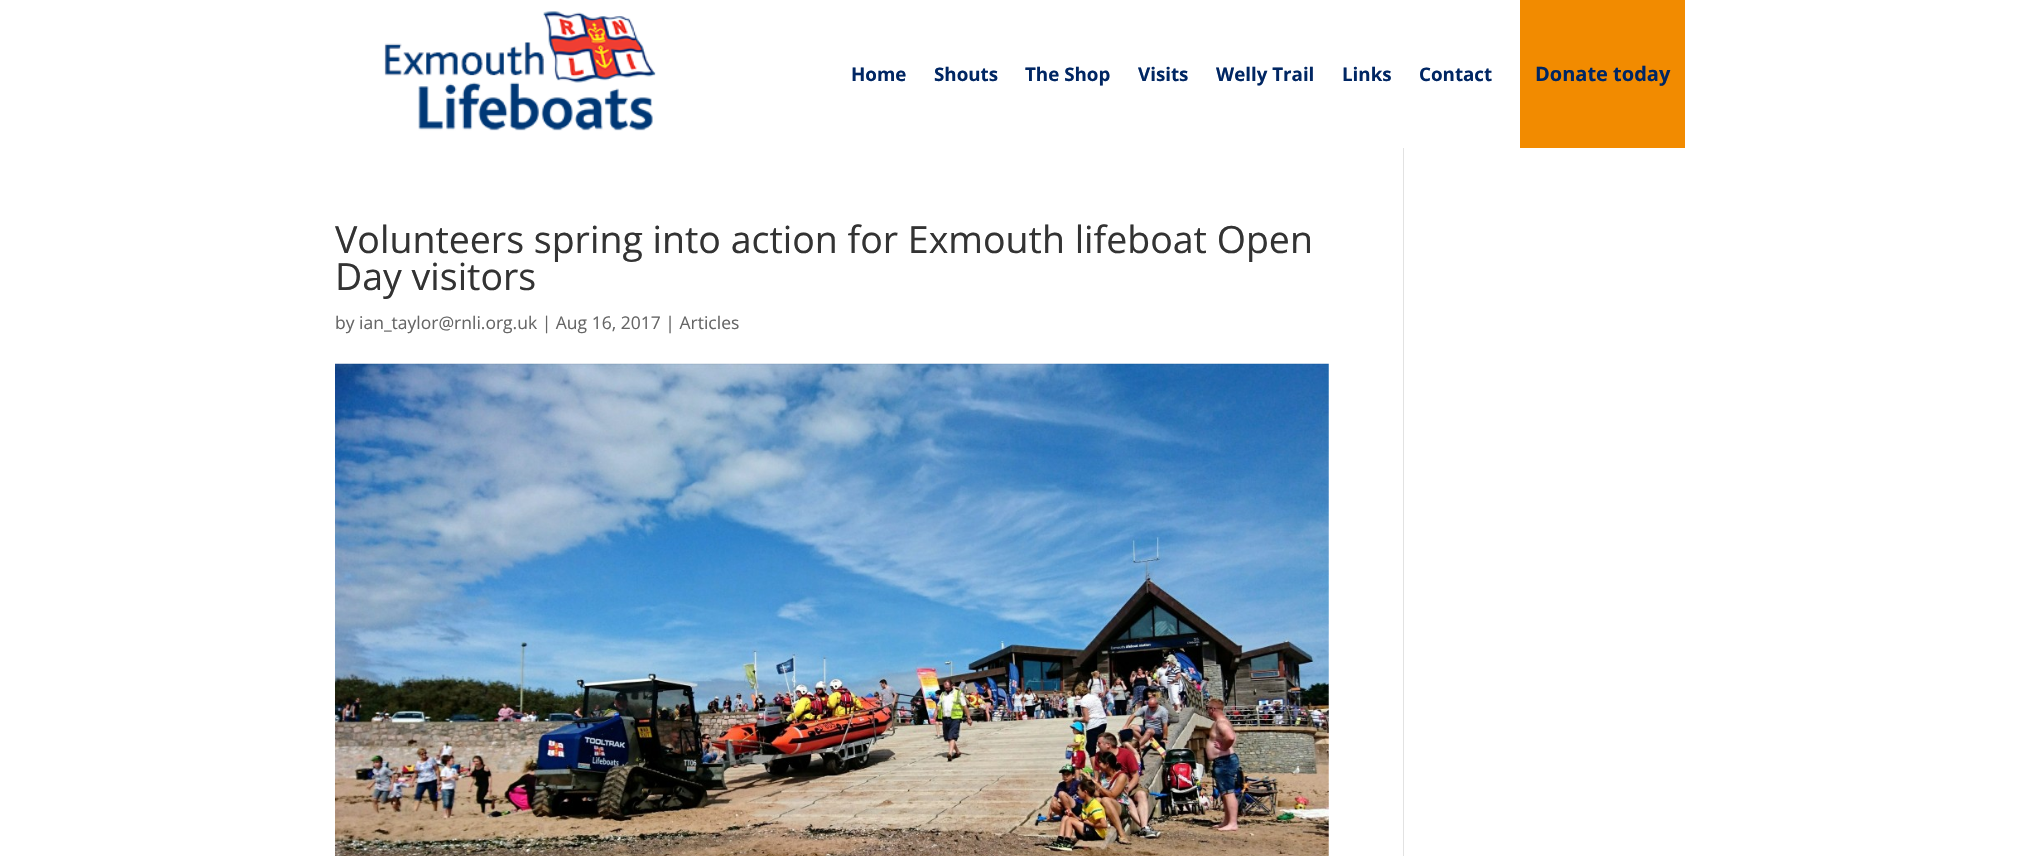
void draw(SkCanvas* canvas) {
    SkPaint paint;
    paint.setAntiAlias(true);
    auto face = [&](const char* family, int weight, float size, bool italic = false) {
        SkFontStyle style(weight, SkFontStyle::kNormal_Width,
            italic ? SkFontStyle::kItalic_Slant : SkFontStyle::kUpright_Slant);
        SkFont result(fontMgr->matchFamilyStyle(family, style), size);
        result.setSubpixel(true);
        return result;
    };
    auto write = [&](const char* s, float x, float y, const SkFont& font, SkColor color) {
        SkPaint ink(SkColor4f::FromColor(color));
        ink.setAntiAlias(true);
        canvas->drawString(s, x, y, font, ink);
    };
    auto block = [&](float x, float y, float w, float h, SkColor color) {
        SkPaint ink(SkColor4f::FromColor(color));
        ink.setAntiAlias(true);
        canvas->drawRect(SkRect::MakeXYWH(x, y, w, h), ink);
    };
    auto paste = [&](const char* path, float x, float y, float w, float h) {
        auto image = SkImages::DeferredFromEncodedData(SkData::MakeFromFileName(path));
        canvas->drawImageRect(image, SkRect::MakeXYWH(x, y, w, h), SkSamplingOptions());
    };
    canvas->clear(SK_ColorWHITE);
    paste("pic1.png", 384, 11, 272, 120);
    auto kFont1 = face("Open Sans", 700, 18.75f);
    write("Home", 851, 81, kFont1, SkColorSetRGB(0, 38, 99));
    write("Shouts", 934, 81, kFont1, SkColorSetRGB(0, 38, 99));
    write("The Shop", 1025, 81, kFont1, SkColorSetRGB(0, 38, 99));
    write("Visits", 1138, 81, kFont1, SkColorSetRGB(0, 38, 99));
    write("Welly Trail", 1216, 81, kFont1, SkColorSetRGB(0, 38, 99));
    write("Links", 1342, 81, kFont1, SkColorSetRGB(0, 38, 99));
    write("Contact", 1419, 81, kFont1, SkColorSetRGB(0, 38, 99));
    block(1520, 0, 165, 148, SkColorSetRGB(242, 139, 0));
    auto kFont2 = face("Open Sans", 700, 20);
    write("Donate today", 1535, 81, kFont2, SkColorSetRGB(0, 38, 99));
    auto kFont3 = face("Open Sans", 400, 37.5f);
    write("Volunteers spring into action for Exmouth lifeboat Open", 335, 253, kFont3, SkColorSetRGB(51, 51, 51));
    write("Day visitors", 335, 290, kFont3, SkColorSetRGB(51, 51, 51));
    auto kFont4 = face("Open Sans", 400, 17.5f);
    write("by ian_taylor@rnli.org.uk | Aug 16, 2017 | Articles", 335, 329, kFont4, SkColorSetRGB(102, 102, 102));
    paste("pic2.png", 335, 363, 994, 493);
    block(1403, 148, 1, 708, SkColorSetRGB(226, 226, 226));
}
